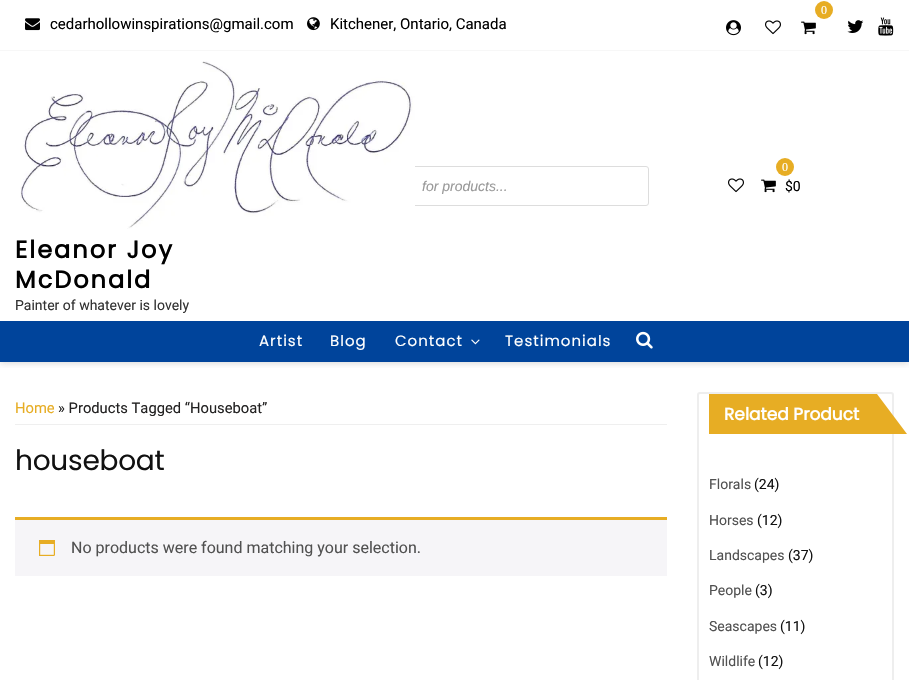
void draw(SkCanvas* canvas) {
    SkPaint paint;
    paint.setAntiAlias(true);
    auto face = [&](const char* family, int weight, float size, bool italic = false) {
        SkFontStyle style(weight, SkFontStyle::kNormal_Width,
            italic ? SkFontStyle::kItalic_Slant : SkFontStyle::kUpright_Slant);
        SkFont result(fontMgr->matchFamilyStyle(family, style), size);
        result.setSubpixel(true);
        return result;
    };
    auto write = [&](const char* s, float x, float y, const SkFont& font, SkColor color) {
        SkPaint ink(SkColor4f::FromColor(color));
        ink.setAntiAlias(true);
        canvas->drawString(s, x, y, font, ink);
    };
    auto writeSpaced = [&](const char* s, float x, float y, const SkFont& font, const SkPaint& ink, float letter, float word) {
        std::vector<SkGlyphID> glyphs(font.countText(s, strlen(s), SkTextEncoding::kUTF8));
        std::vector<float> xs(glyphs.size());
        font.textToGlyphs(s, strlen(s), SkTextEncoding::kUTF8, glyphs);
        font.getXPos(glyphs, xs, x);
        float extra = 0;
        for (size_t i = 0; i < glyphs.size(); i++) {
            xs[i] += extra;
            extra += letter + word * (glyphs[i] == font.unicharToGlyph(' '));
        }
        canvas->drawTextBlob(SkTextBlob::MakeFromPosHGlyphs(glyphs, xs, y, font), 0, 0, ink);
    };
    auto block = [&](float x, float y, float w, float h, SkColor color) {
        SkPaint ink(SkColor4f::FromColor(color));
        ink.setAntiAlias(true);
        canvas->drawRect(SkRect::MakeXYWH(x, y, w, h), ink);
    };
    auto paste = [&](const char* path, float x, float y, float w, float h) {
        auto image = SkImages::DeferredFromEncodedData(SkData::MakeFromFileName(path));
        canvas->drawImageRect(image, SkRect::MakeXYWH(x, y, w, h), SkSamplingOptions());
    };
    canvas->clear(SK_ColorWHITE);
    canvas->save();
    canvas->clipRect(SkRect::MakeXYWH(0, 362, 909, 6));
    paint.setColor(SkColorSetARGB(71, 106, 106, 106));
    paint.setMaskFilter(SkMaskFilter::MakeBlur(kNormal_SkBlurStyle, 3.5f));
    canvas->drawRect(SkRect::MakeXYWH(0, 1, 909, 362), paint);
    paint.setMaskFilter(nullptr);
    canvas->restore();
    block(0, 50, 909, 1, SkColorSetRGB(247, 247, 247));
    paint.setColor(SkColorSetRGB(231, 173, 36));
    canvas->drawCircle(824, 10, 9, paint);
    auto kFont1 = face("Liberation Serif", 400, 12);
    write("0", 821, 14, kFont1, SK_ColorWHITE);
    paste("pic1.png", 801, 21, 15, 14);
    paste("pic2.png", 726, 20, 15, 16);
    paste("pic3.png", 765, 20, 16, 15);
    paste("pic4.png", 847, 20, 17, 13);
    paste("pic5.png", 878, 17, 16, 19);
    paste("pic6.png", 25, 18, 15, 13);
    auto kFont2 = face("Roboto", 400, 15);
    write("cedarhollowinspirations@gmail.com", 50, 29, kFont2, SK_ColorBLACK);
    paste("pic7.png", 307, 17, 13, 14);
    write("Kitchener, Ontario, Canada", 330, 29, kFont2, SK_ColorBLACK);
    paint.setStyle(SkPaint::kStroke_Style);
    paint.setStrokeWidth(1);
    paint.setColor(SkColorSetRGB(221, 221, 221));
    canvas->drawRoundRect(SkRect::MakeXYWH(333.5f, 166.5f, 315, 39), 2.5f, 2.5f, paint);
    auto kFont3 = face("Liberation Sans", 400, 14, true);
    write("for products...", 422, 191, kFont3, SkColorSetRGB(153, 153, 153));
    paste("pic3.png", 728, 178, 16, 15);
    paint.setStyle(SkPaint::kFill_Style);
    paint.setColor(SkColorSetRGB(231, 173, 36));
    canvas->drawCircle(785, 167, 9, paint);
    write("0", 782, 171, kFont1, SK_ColorWHITE);
    paste("pic1.png", 761, 179, 15, 14);
    auto kFont4 = face("Roboto", 400, 14);
    write("$0", 785, 191, kFont4, SK_ColorBLACK);
    paste("pic8.png", 20, 61, 395, 168);
    auto kFont5 = face("Poppins", 700, 24);
    paint.setColor(SK_ColorBLACK);
    writeSpaced("Eleanor Joy", 15, 258, kFont5, paint, 2, 0);
    writeSpaced("McDonald", 15, 288, kFont5, paint, 2, 0);
    write("Painter of whatever is lovely", 15, 310, kFont4, SkColorSetRGB(51, 51, 51));
    block(0, 321, 909, 41, SkColorSetRGB(0, 68, 155));
    auto kFont6 = face("Poppins", 400, 15);
    paint.setColor(SK_ColorWHITE);
    writeSpaced("Artist", 259, 346, kFont6, paint, 1, 0);
    writeSpaced("Blog", 330, 346, kFont6, paint, 1, 0);
    writeSpaced("Contact", 395, 346, kFont6, paint, 1, 0);
    paste("pic9.png", 471, 339, 9, 6);
    writeSpaced("Testimonials", 505, 346, kFont6, paint, 1, 0);
    paste("pic10.png", 636, 331, 17, 18);
    block(15, 424, 652, 1, SkColorSetRGB(239, 239, 239));
    auto kFont7 = face("Roboto", 400, 14.75f);
    write("Home", 15, 413, kFont7, SkColorSetRGB(231, 173, 36));
    write("» Products Tagged “Houseboat”", 58, 413, kFont7, SkColorSetRGB(35, 34, 34));
    auto kFont8 = face("Poppins", 400, 28);
    paint.setColor(SkColorSetRGB(17, 17, 17));
    writeSpaced("houseboat", 15, 470, kFont8, paint, -0.25f, 0);
    block(15, 520, 652, 56, SkColorSetRGB(246, 245, 248));
    block(15, 517, 652, 3, SkColorSetRGB(231, 173, 36));
    paste("pic11.png", 39, 540, 16, 16);
    auto kFont9 = face("Roboto", 400, 16);
    write("No products were found matching your selection.", 71, 553, kFont9, SkColorSetRGB(81, 81, 81));
    paint.setStyle(SkPaint::kStroke_Style);
    paint.setStrokeWidth(2);
    paint.setColor(SkColorSetRGB(238, 238, 238));
    canvas->drawRoundRect(SkRect::MakeXYWH(698, 393, 195, 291), 2, 2, paint);
    block(709, 394, 168, 40, SkColorSetRGB(231, 173, 36));
    auto kFont10 = face("Poppins", 700, 17);
    write("Related Product", 724, 420, kFont10, SK_ColorWHITE);
    paint.setStyle(SkPaint::kFill_Style);
    paint.setColor(SkColorSetRGB(231, 173, 36));
    canvas->drawPath(SkPathBuilder().moveTo(877, 434).lineTo(877, 394).lineTo(907, 434).close().detach(), paint);
    write("Florals", 709, 489, kFont4, SkColorSetRGB(81, 81, 81));
    write("(24)", 754, 489, kFont4, SkColorSetRGB(17, 17, 17));
    write("Horses", 709, 525, kFont4, SkColorSetRGB(81, 81, 81));
    write("(12)", 757, 525, kFont4, SkColorSetRGB(17, 17, 17));
    write("Landscapes", 709, 560, kFont4, SkColorSetRGB(81, 81, 81));
    write("(37)", 788, 560, kFont4, SkColorSetRGB(17, 17, 17));
    write("People", 709, 595, kFont4, SkColorSetRGB(81, 81, 81));
    write("(3)", 755, 595, kFont4, SkColorSetRGB(17, 17, 17));
    write("Seascapes", 709, 631, kFont4, SkColorSetRGB(81, 81, 81));
    write("(11)", 780, 631, kFont4, SkColorSetRGB(17, 17, 17));
    write("Wildlife", 709, 666, kFont4, SkColorSetRGB(81, 81, 81));
    write("(12)", 758, 666, kFont4, SkColorSetRGB(17, 17, 17));
}
